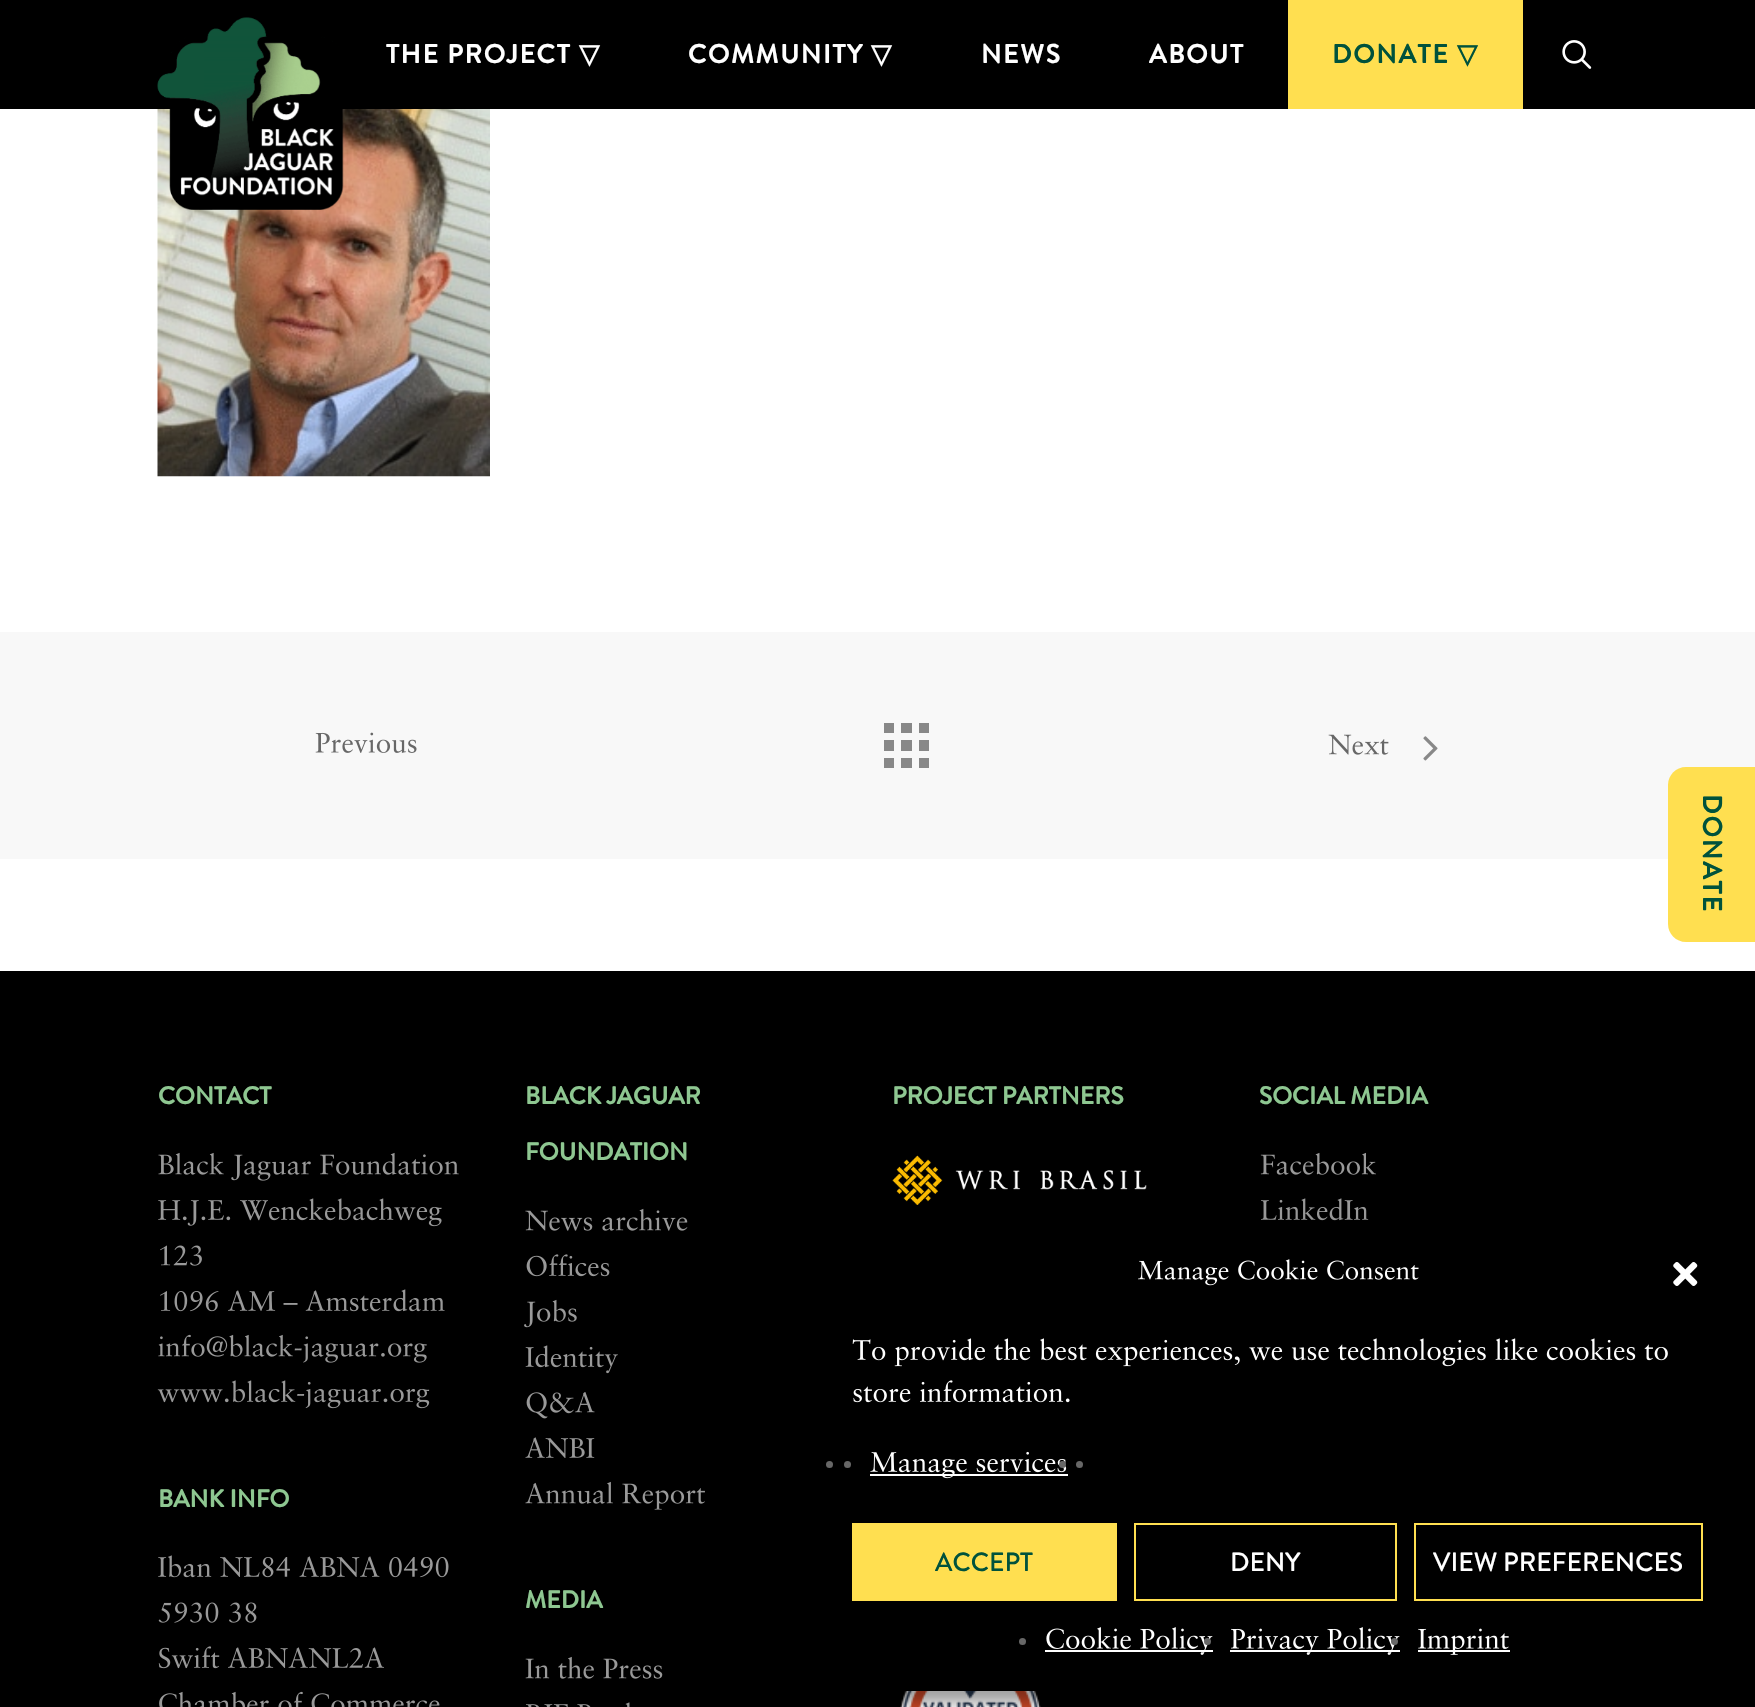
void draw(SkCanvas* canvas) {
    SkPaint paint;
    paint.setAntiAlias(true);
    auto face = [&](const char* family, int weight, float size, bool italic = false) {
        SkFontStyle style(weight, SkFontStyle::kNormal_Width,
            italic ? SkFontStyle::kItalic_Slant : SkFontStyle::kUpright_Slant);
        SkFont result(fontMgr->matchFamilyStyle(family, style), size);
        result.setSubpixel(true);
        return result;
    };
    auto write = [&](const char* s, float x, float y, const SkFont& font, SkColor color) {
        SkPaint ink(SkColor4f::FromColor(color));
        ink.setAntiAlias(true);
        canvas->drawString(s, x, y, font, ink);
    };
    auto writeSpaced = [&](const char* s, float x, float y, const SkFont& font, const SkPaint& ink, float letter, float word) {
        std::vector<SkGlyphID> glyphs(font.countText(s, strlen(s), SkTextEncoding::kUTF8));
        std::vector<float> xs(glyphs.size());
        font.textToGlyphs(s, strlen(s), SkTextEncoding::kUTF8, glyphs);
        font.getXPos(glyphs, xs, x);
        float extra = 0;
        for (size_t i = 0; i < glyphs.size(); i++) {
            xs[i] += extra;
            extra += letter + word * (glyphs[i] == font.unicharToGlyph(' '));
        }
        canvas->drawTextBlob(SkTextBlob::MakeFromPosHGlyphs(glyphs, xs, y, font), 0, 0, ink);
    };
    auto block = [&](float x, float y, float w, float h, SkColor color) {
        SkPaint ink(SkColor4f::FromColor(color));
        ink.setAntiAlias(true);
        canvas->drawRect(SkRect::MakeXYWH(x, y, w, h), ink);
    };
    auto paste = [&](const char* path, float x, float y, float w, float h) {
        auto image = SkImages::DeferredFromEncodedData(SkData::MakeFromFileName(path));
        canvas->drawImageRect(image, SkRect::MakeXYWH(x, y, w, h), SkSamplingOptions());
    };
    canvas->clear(SK_ColorWHITE);
    block(0, 0, 1755, 109, SK_ColorBLACK);
    paste("pic3.png", 157, 109, 333, 368);
    paste("pic1.png", 157, 17, 187, 193);
    auto kFont1 = face("Brandon Grotesque", 700, 26.25f);
    paint.setColor(SK_ColorWHITE);
    writeSpaced("THE PROJECT", 386, 63, kFont1, paint, 1.75f, 0);
    auto kFont2 = face("DejaVu Sans", 700, 26.25f);
    writeSpaced("▽", 579, 63, kFont2, paint, 1.75f, 0);
    writeSpaced("COMMUNITY", 688, 63, kFont1, paint, 1.75f, 0);
    writeSpaced("▽", 871, 63, kFont2, paint, 1.75f, 0);
    writeSpaced("NEWS", 981, 63, kFont1, paint, 1.75f, 0);
    writeSpaced("ABOUT", 1149, 63, kFont1, paint, 1.75f, 0);
    block(1288, 0, 235, 109, SkColorSetRGB(255, 223, 80));
    paint.setColor(SkColorSetRGB(0, 82, 60));
    writeSpaced("DONATE", 1332, 63, kFont1, paint, 1.75f, 0);
    writeSpaced("▽", 1457, 63, kFont2, paint, 1.75f, 0);
    paste("pic2.png", 1562, 40, 30, 29);
    block(0, 632, 1755, 227, SkColorSetRGB(248, 248, 248));
    paint.setColor(SkColorSetRGB(255, 223, 80));
    canvas->drawPath(SkPathBuilder().moveTo(1686, 767).lineTo(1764, 767).lineTo(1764, 942).lineTo(1686, 942).cubicTo(1676, 942, 1668, 934, 1668, 924).lineTo(1668, 785).cubicTo(1668, 775, 1676, 767, 1686, 767).close().detach(), paint);
    paint.setColor(SkColorSetRGB(0, 82, 60));
    canvas->save();
    canvas->rotate(90, 1703, 794);
    writeSpaced("DONATE", 1703, 794, kFont1, paint, 2, 0);
    canvas->restore();
    block(919, 758, 10, 10, SkColorSetRGB(136, 136, 136));
    block(901, 758, 11, 10, SkColorSetRGB(136, 136, 136));
    block(884, 723, 10, 10, SkColorSetRGB(136, 136, 136));
    block(901, 723, 11, 10, SkColorSetRGB(136, 136, 136));
    block(919, 723, 10, 10, SkColorSetRGB(136, 136, 136));
    block(919, 740, 10, 11, SkColorSetRGB(136, 136, 136));
    block(884, 758, 10, 10, SkColorSetRGB(136, 136, 136));
    block(884, 740, 10, 11, SkColorSetRGB(136, 136, 136));
    block(901, 740, 11, 11, SkColorSetRGB(136, 136, 136));
    paste("pic4.png", 315, 732, 102, 21);
    paste("pic5.png", 1328, 734, 61, 21);
    paste("pic6.png", 1423, 736, 15, 25);
    block(0, 971, 1755, 736, SK_ColorBLACK);
    auto kFont3 = face("Brandon Grotesque", 700, 24.5f);
    write("CONTACT", 158, 1104, kFont3, SkColorSetRGB(142, 199, 145));
    paste("pic7.png", 158, 1152, 301, 29);
    paste("pic8.png", 158, 1198, 284, 29);
    paste("pic9.png", 160, 1245, 42, 21);
    paste("pic10.png", 160, 1289, 285, 23);
    paste("pic11.png", 158, 1334, 269, 29);
    paste("pic12.png", 157, 1380, 273, 29);
    write("BANK INFO", 158, 1507, kFont3, SkColorSetRGB(142, 199, 145));
    paste("pic13.png", 158, 1555, 291, 23);
    paste("pic14.png", 158, 1602, 99, 21);
    paste("pic15.png", 158, 1646, 226, 23);
    paste("pic16.png", 159, 1691, 281, 16);
    write("BLACK JAGUAR", 525, 1104, kFont3, SkColorSetRGB(142, 199, 145));
    write("FOUNDATION", 525, 1160, kFont3, SkColorSetRGB(142, 199, 145));
    paste("pic17.png", 525, 1208, 163, 23);
    paste("pic18.png", 526, 1254, 84, 23);
    paste("pic19.png", 524, 1299, 53, 29);
    paste("pic20.png", 525, 1345, 93, 29);
    paste("pic21.png", 526, 1392, 69, 27);
    paste("pic22.png", 525, 1437, 70, 21);
    paste("pic23.png", 525, 1481, 180, 29);
    write("MEDIA", 525, 1608, kFont3, SkColorSetRGB(142, 199, 145));
    paste("pic24.png", 525, 1656, 138, 23);
    paste("pic25.png", 526, 1702, 104, 5);
    write("PROJECT PARTNERS", 892, 1104, kFont3, SkColorSetRGB(142, 199, 145));
    paste("pic26.png", 892, 1155, 255, 50);
    paste("pic27.png", 900, 1691, 141, 16);
    write("SOCIAL MEDIA", 1259, 1104, kFont3, SkColorSetRGB(142, 199, 145));
    paste("pic28.png", 1260, 1152, 116, 23);
    paste("pic29.png", 1261, 1198, 108, 23);
    paint.setColor(SkColorSetARGB(59, 0, 0, 0));
    paint.setMaskFilter(SkMaskFilter::MakeBlur(kNormal_SkBlurStyle, 5));
    canvas->drawRoundRect(SkRect::MakeXYWH(817, 1236, 921, 465), 21, 21, paint);
    paint.setMaskFilter(nullptr);
    paint.setColor(SkColorSetARGB(48, 0, 0, 0));
    paint.setMaskFilter(SkMaskFilter::MakeBlur(kNormal_SkBlurStyle, 17.5f));
    canvas->drawRoundRect(SkRect::MakeXYWH(817, 1243, 921, 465), 21, 21, paint);
    paint.setMaskFilter(nullptr);
    paste("pic30.png", 1138, 1259, 281, 27);
    paste("pic31.png", 1673, 1262, 25, 24);
    paste("pic32.png", 852, 1338, 816, 29);
    paste("pic33.png", 853, 1380, 217, 23);
    paint.setColor(SkColorSetRGB(103, 103, 103));
    canvas->drawCircle(829.5f, 1464.5f, 3.5f, paint);
    canvas->drawCircle(847.5f, 1464.5f, 3.5f, paint);
    block(870, 1474, 198, 2, SK_ColorWHITE);
    paste("pic34.png", 870, 1451, 197, 28);
    canvas->drawCircle(1062.5f, 1464.5f, 3.5f, paint);
    canvas->drawCircle(1079.5f, 1464.5f, 3.5f, paint);
    block(852, 1523, 265, 78, SkColorSetRGB(255, 223, 80));
    auto kFont4 = face("Brandon Grotesque", 500, 26.25f);
    write("ACCEPT", 935, 1571, kFont4, SkColorSetRGB(0, 82, 60));
    paint.setStyle(SkPaint::kStroke_Style);
    paint.setStrokeWidth(2);
    paint.setColor(SkColorSetRGB(255, 223, 80));
    canvas->drawRect(SkRect::MakeXYWH(1135, 1524, 261, 76), paint);
    write("DENY", 1230, 1571, kFont4, SK_ColorWHITE);
    canvas->drawRect(SkRect::MakeXYWH(1415, 1524, 287, 76), paint);
    write("VIEW PREFERENCES", 1433, 1571, kFont4, SK_ColorWHITE);
    paint.setStyle(SkPaint::kFill_Style);
    paint.setColor(SkColorSetRGB(103, 103, 103));
    canvas->drawCircle(1022.5f, 1641.5f, 3.5f, paint);
    block(1045, 1650, 168, 2, SK_ColorWHITE);
    paste("pic35.png", 1046, 1627, 167, 28);
    canvas->drawCircle(1207.5f, 1641.5f, 3.5f, paint);
    block(1230, 1650, 170, 2, SK_ColorWHITE);
    paste("pic36.png", 1231, 1627, 169, 28);
    canvas->drawCircle(1394.5f, 1641.5f, 3.5f, paint);
    block(1418, 1650, 92, 2, SK_ColorWHITE);
    paste("pic37.png", 1418, 1628, 91, 27);
}
